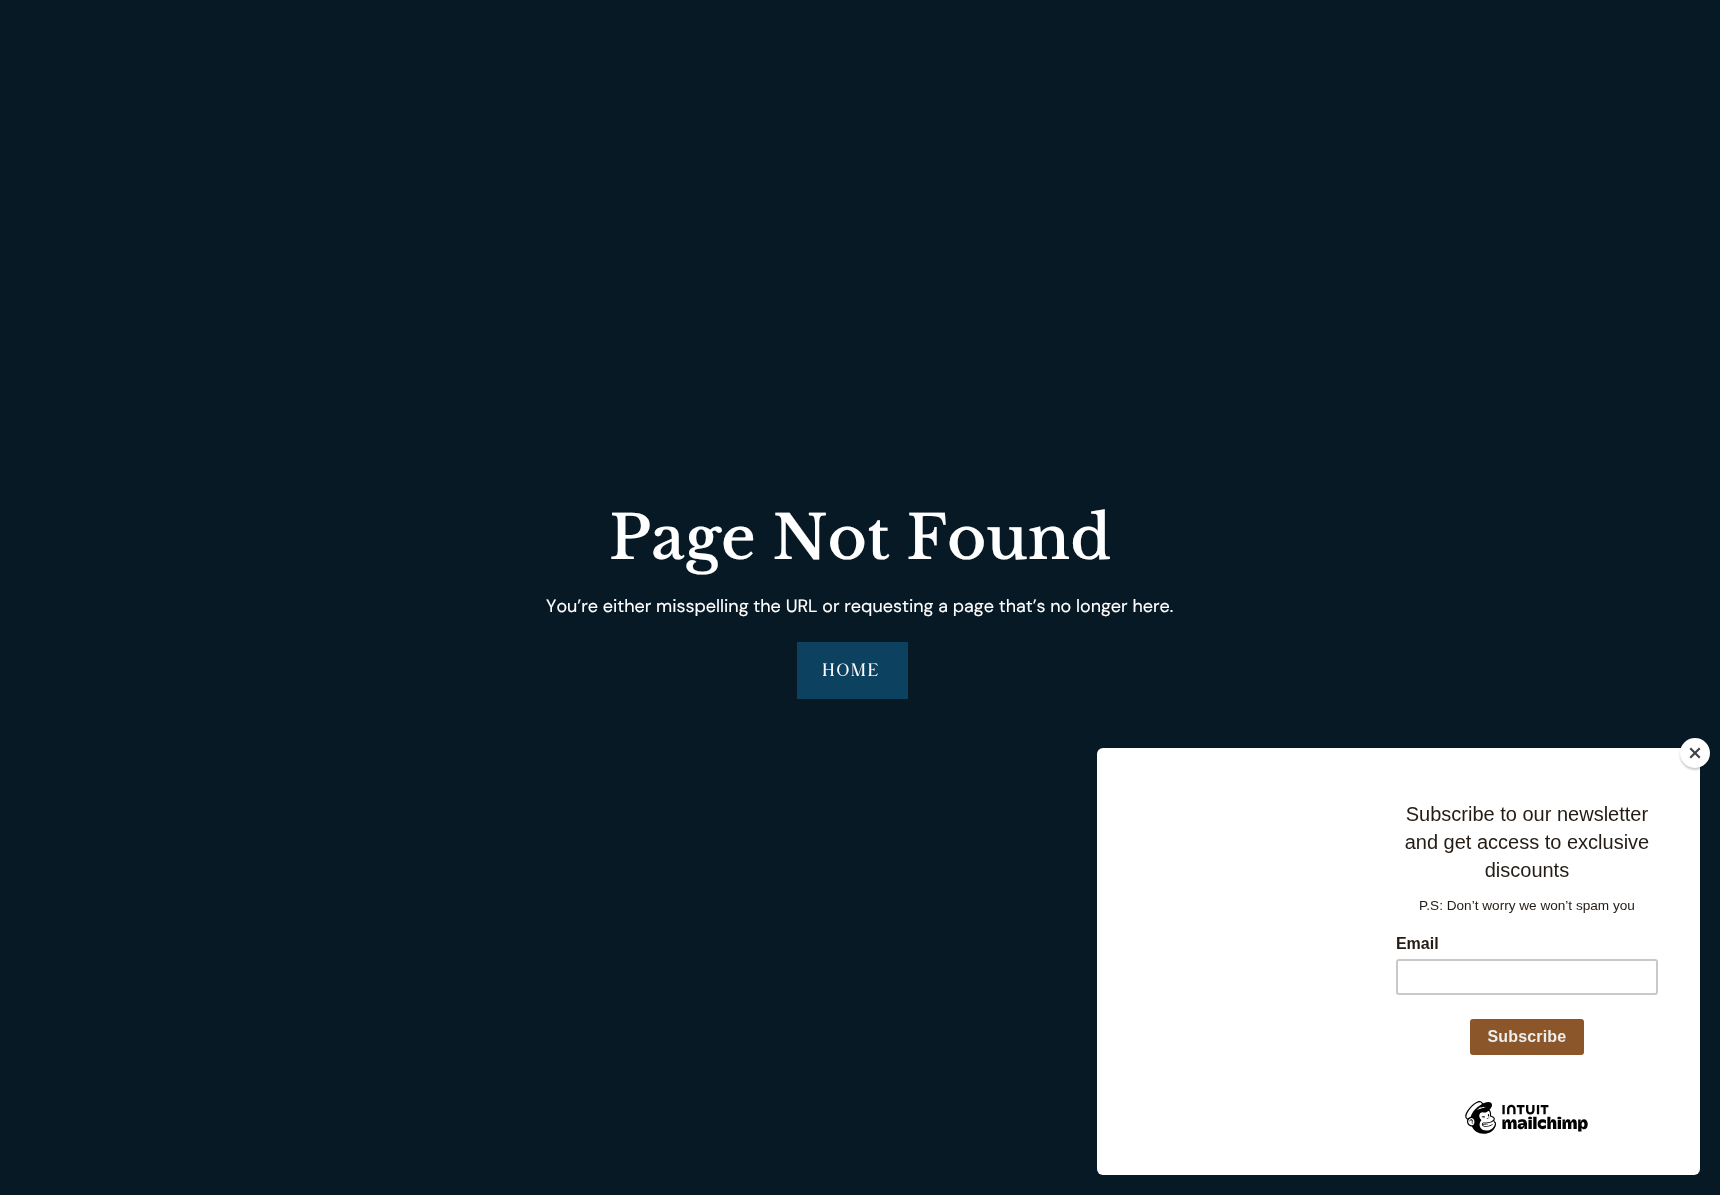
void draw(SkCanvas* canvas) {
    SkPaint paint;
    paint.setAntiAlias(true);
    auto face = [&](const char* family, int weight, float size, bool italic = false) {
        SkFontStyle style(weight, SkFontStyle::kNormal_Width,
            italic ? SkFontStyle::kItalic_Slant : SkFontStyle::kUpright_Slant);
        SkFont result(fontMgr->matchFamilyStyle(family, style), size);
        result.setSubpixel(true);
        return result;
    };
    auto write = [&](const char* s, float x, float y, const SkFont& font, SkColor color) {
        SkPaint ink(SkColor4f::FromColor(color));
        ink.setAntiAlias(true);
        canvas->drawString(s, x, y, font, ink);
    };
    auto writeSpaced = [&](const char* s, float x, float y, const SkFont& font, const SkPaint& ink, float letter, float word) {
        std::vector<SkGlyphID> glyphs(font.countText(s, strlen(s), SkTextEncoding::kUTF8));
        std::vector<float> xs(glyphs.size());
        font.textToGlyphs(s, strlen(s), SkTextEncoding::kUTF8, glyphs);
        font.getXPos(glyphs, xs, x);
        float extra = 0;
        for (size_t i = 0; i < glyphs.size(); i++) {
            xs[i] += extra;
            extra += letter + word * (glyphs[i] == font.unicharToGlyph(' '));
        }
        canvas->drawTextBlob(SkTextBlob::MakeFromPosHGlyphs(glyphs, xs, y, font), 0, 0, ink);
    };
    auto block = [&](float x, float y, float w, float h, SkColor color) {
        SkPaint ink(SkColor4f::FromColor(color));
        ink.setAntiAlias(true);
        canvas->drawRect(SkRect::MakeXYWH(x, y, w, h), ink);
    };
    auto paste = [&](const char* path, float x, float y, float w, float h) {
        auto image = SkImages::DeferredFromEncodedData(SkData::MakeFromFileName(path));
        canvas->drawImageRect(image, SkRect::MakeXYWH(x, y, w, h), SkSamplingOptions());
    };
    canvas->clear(SkColorSetRGB(6, 25, 37));
    auto kFont1 = face("Libre Baskerville", 500, 60);
    write("Page Not Found", 609, 559, kFont1, SK_ColorWHITE);
    auto kFont2 = face("DM Sans", 400, 18);
    write("You’re either misspelling the URL or requesting a page that’s no longer here.", 546, 612, kFont2, SK_ColorWHITE);
    block(797, 642, 111, 57, SkColorSetRGB(12, 65, 96));
    auto kFont3 = face("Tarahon", 400, 18);
    paint.setColor(SK_ColorWHITE);
    writeSpaced("HOME", 823, 676, kFont3, paint, 2, 0);
    paste("pic1.png", 1097, 748, 603, 427);
    paint.setColor(SkColorSetARGB(51, 0, 0, 0));
    paint.setMaskFilter(SkMaskFilter::MakeBlur(kNormal_SkBlurStyle, 1));
    canvas->drawRoundRect(SkRect::MakeXYWH(1680, 740, 30, 30), 15, 15, paint);
    paint.setMaskFilter(nullptr);
    paint.setColor(SK_ColorWHITE);
    canvas->drawCircle(1695, 753, 15, paint);
    paint.setColor(SkColorSetRGB(65, 65, 65));
    canvas->drawPath(SkPathBuilder().moveTo(1699, 747.5f).lineTo(1700.5f, 749).lineTo(1691, 758.5f).lineTo(1689.5f, 757).close().detach(), paint);
    canvas->drawPath(SkPathBuilder().moveTo(1689.5f, 749).lineTo(1691, 747.5f).lineTo(1700.5f, 757).lineTo(1699, 758.5f).close().detach(), paint);
}
